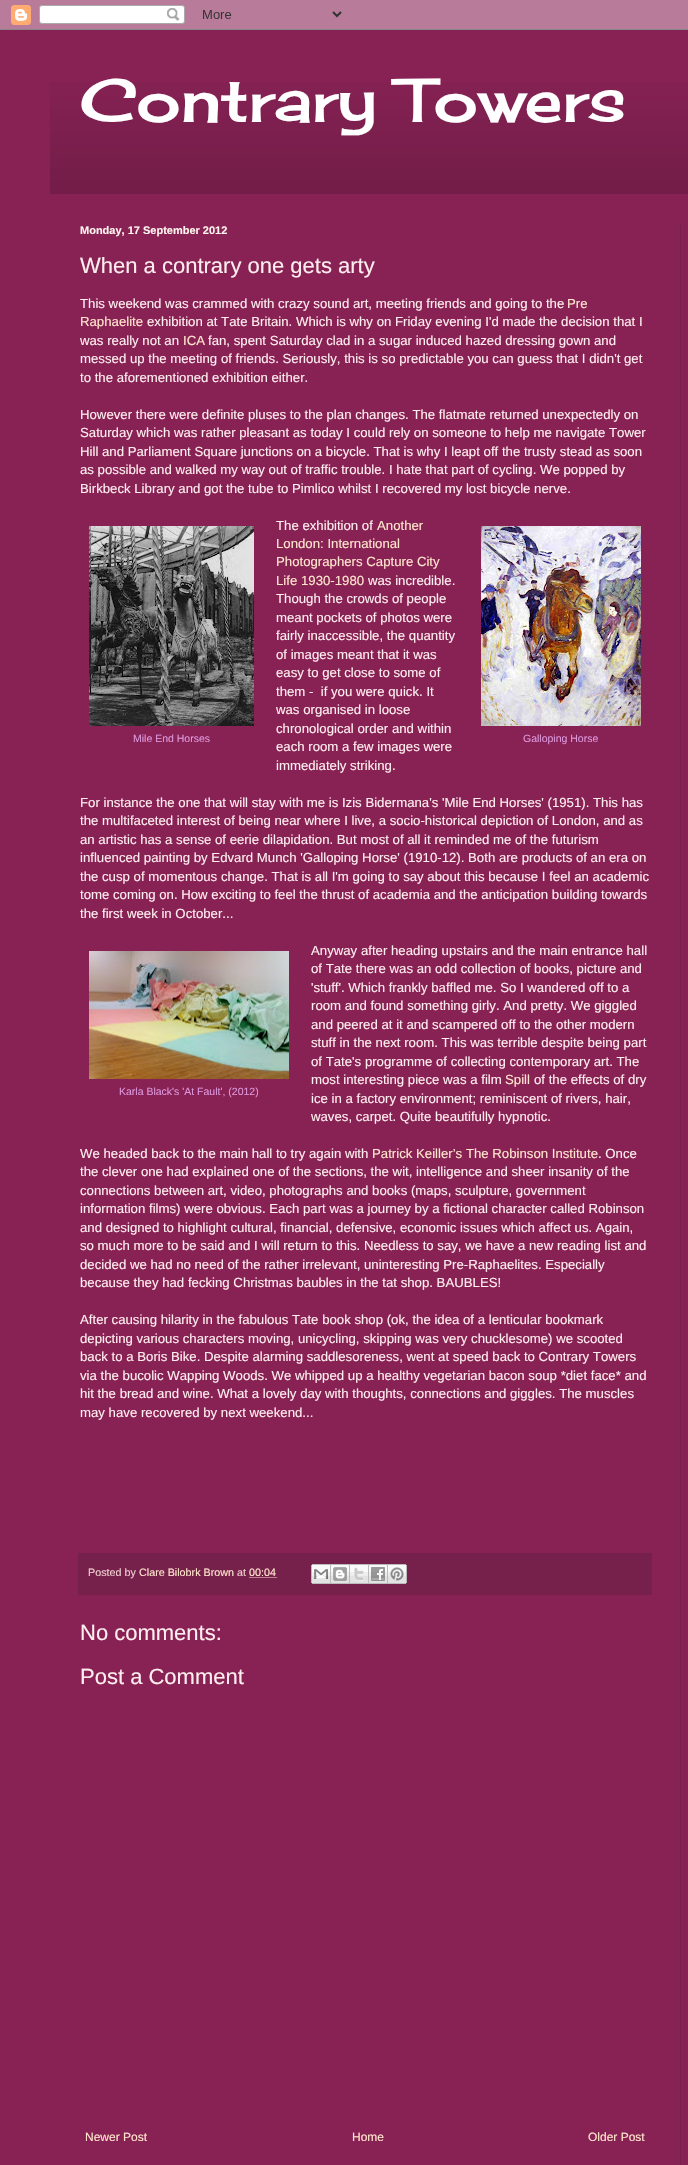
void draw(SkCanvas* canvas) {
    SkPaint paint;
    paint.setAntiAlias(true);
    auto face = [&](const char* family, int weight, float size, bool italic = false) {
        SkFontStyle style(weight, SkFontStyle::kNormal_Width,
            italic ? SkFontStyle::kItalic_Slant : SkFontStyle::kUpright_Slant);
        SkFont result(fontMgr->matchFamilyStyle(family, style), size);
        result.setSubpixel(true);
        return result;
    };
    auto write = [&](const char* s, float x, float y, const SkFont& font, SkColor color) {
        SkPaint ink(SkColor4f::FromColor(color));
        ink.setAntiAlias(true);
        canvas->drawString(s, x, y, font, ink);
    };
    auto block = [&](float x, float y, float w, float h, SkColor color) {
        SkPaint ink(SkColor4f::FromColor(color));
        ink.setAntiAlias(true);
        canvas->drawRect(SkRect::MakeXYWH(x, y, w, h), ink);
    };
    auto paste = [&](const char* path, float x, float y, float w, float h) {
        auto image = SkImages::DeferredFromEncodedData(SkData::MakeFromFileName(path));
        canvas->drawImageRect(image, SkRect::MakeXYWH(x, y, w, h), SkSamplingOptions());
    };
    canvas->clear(SkColorSetRGB(136, 34, 85));
    paste("pic1.png", 0, 0, 688, 30);
    paste("pic2.png", 50, 82, 638, 112);
    auto kFont1 = face("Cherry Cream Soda", 400, 60);
    write("Contrary Towers", 80, 122, kFont1, SK_ColorWHITE);
    auto kFont2 = face("Liberation Sans", 700, 11);
    write("Monday, 17 September 2012", 80, 234, kFont2, SkColorSetRGB(255, 245, 238));
    auto kFont3 = face("Liberation Sans", 400, 22);
    write("When a contrary one gets arty", 80, 273, kFont3, SkColorSetRGB(255, 238, 239));
    auto kFont4 = face("Liberation Sans", 400, 13.2f);
    write("This weekend was crammed with crazy sound art, meeting friends and going to the", 80, 308, kFont4, SkColorSetRGB(255, 238, 239));
    write("Pre", 567, 308, kFont4, SkColorSetRGB(255, 229, 204));
    write("Raphaelite", 80, 326, kFont4, SkColorSetRGB(255, 229, 204));
    write("exhibition at Tate Britain. Which is why on Friday evening I'd made the decision that I", 147, 326, kFont4, SkColorSetRGB(255, 238, 239));
    write("was really not an", 80, 345, kFont4, SkColorSetRGB(255, 238, 239));
    write("ICA", 183, 345, kFont4, SkColorSetRGB(255, 229, 204));
    write("fan, spent Saturday clad in a sugar induced hazed dressing gown and", 208, 345, kFont4, SkColorSetRGB(255, 238, 239));
    write("messed up the meeting of friends. Seriously, this is so predictable you can guess that I didn't get", 80, 363, kFont4, SkColorSetRGB(255, 238, 239));
    write("to the aforementioned exhibition either.", 80, 382, kFont4, SkColorSetRGB(255, 238, 239));
    write("However there were definite pluses to the plan changes. The flatmate returned unexpectedly on", 80, 419, kFont4, SkColorSetRGB(255, 238, 239));
    write("Saturday which was rather pleasant as today I could rely on someone to help me navigate Tower", 80, 437, kFont4, SkColorSetRGB(255, 238, 239));
    write("Hill and Parliament Square junctions on a bicycle. That is why I leapt off the trusty stead as soon", 80, 456, kFont4, SkColorSetRGB(255, 238, 239));
    write("as possible and walked my way out of traffic trouble. I hate that part of cycling. We popped by", 80, 474, kFont4, SkColorSetRGB(255, 238, 239));
    write("Birkbeck Library and got the tube to Pimlico whilst I recovered my lost bicycle nerve.", 80, 493, kFont4, SkColorSetRGB(255, 238, 239));
    paste("pic3.png", 89, 526, 165, 200);
    auto kFont5 = face("Liberation Sans", 400, 10.5f);
    write("Mile End Horses", 133, 742, kFont5, SkColorSetRGB(221, 153, 221));
    write("The exhibition of", 276, 530, kFont4, SkColorSetRGB(255, 238, 239));
    write("Another", 377, 530, kFont4, SkColorSetRGB(255, 229, 204));
    write("London: International", 276, 548, kFont4, SkColorSetRGB(255, 229, 204));
    write("Photographers Capture City", 276, 566, kFont4, SkColorSetRGB(255, 229, 204));
    write("Life 1930-1980", 276, 585, kFont4, SkColorSetRGB(255, 229, 204));
    write("was incredible.", 368, 585, kFont4, SkColorSetRGB(255, 238, 239));
    write("Though the crowds of people", 276, 603, kFont4, SkColorSetRGB(255, 238, 239));
    write("meant pockets of photos were", 276, 622, kFont4, SkColorSetRGB(255, 238, 239));
    write("fairly inaccessible, the quantity", 276, 640, kFont4, SkColorSetRGB(255, 238, 239));
    write("of images meant that it was", 276, 659, kFont4, SkColorSetRGB(255, 238, 239));
    write("easy to get close to some of", 276, 677, kFont4, SkColorSetRGB(255, 238, 239));
    write("them -  if you were quick. It", 276, 696, kFont4, SkColorSetRGB(255, 238, 239));
    write("was organised in loose", 276, 714, kFont4, SkColorSetRGB(255, 238, 239));
    write("chronological order and within", 276, 733, kFont4, SkColorSetRGB(255, 238, 239));
    write("each room a few images were", 276, 751, kFont4, SkColorSetRGB(255, 238, 239));
    write("immediately striking.", 276, 770, kFont4, SkColorSetRGB(255, 238, 239));
    paste("pic4.png", 481, 526, 160, 200);
    write("Galloping Horse", 523, 742, kFont5, SkColorSetRGB(221, 153, 221));
    write("For instance the one that will stay with me is Izis Bidermana's 'Mile End Horses' (1951). This has", 80, 807, kFont4, SkColorSetRGB(255, 238, 239));
    write("the multifaceted interest of being near where I live, a socio-historical depiction of London, and as", 80, 825, kFont4, SkColorSetRGB(255, 238, 239));
    write("an artistic has a sense of eerie dilapidation. But most of all it reminded me of the futurism", 80, 844, kFont4, SkColorSetRGB(255, 238, 239));
    write("influenced painting by Edvard Munch 'Galloping Horse' (1910-12). Both are products of an era on", 80, 862, kFont4, SkColorSetRGB(255, 238, 239));
    write("the cusp of momentous change. That is all I'm going to say about this because I feel an academic", 80, 881, kFont4, SkColorSetRGB(255, 238, 239));
    write("tome coming on. How exciting to feel the thrust of academia and the anticipation building towards", 80, 899, kFont4, SkColorSetRGB(255, 238, 239));
    write("the first week in October...", 80, 918, kFont4, SkColorSetRGB(255, 238, 239));
    paste("pic5.png", 89, 951, 200, 128);
    write("Karla Black's 'At Fault', (2012)", 119, 1095, kFont5, SkColorSetRGB(221, 153, 221));
    write("Anyway after heading upstairs and the main entrance hall", 311, 955, kFont4, SkColorSetRGB(255, 238, 239));
    write("of Tate there was an odd collection of books, picture and", 311, 973, kFont4, SkColorSetRGB(255, 238, 239));
    write("'stuff'. Which frankly baffled me. So I wandered off to a", 311, 992, kFont4, SkColorSetRGB(255, 238, 239));
    write("room and found something girly. And pretty. We giggled", 311, 1010, kFont4, SkColorSetRGB(255, 238, 239));
    write("and peered at it and scampered off to the other modern", 311, 1029, kFont4, SkColorSetRGB(255, 238, 239));
    write("stuff in the next room. This was terrible despite being part", 311, 1047, kFont4, SkColorSetRGB(255, 238, 239));
    write("of Tate's programme of collecting contemporary art. The", 311, 1066, kFont4, SkColorSetRGB(255, 238, 239));
    write("most interesting piece was a film", 311, 1084, kFont4, SkColorSetRGB(255, 238, 239));
    write("Spill", 505, 1084, kFont4, SkColorSetRGB(255, 229, 204));
    write("of the effects of dry", 534, 1084, kFont4, SkColorSetRGB(255, 238, 239));
    write("ice in a factory environment; reminiscent of rivers, hair,", 311, 1103, kFont4, SkColorSetRGB(255, 238, 239));
    write("waves, carpet. Quite beautifully hypnotic.", 311, 1121, kFont4, SkColorSetRGB(255, 238, 239));
    write("We headed back to the main hall to try again with", 80, 1158, kFont4, SkColorSetRGB(255, 238, 239));
    write("Patrick Keiller’s The Robinson Institute", 372, 1158, kFont4, SkColorSetRGB(255, 229, 204));
    write(". Once", 598, 1158, kFont4, SkColorSetRGB(255, 238, 239));
    write("the clever one had explained one of the sections, the wit, intelligence and sheer insanity of the", 80, 1176, kFont4, SkColorSetRGB(255, 238, 239));
    write("connections between art, video, photographs and books (maps, sculpture, government", 80, 1195, kFont4, SkColorSetRGB(255, 238, 239));
    write("information films) were obvious. Each part was a journey by a fictional character called Robinson", 80, 1213, kFont4, SkColorSetRGB(255, 238, 239));
    write("and designed to highlight cultural, financial, defensive, economic issues which affect us. Again,", 80, 1232, kFont4, SkColorSetRGB(255, 238, 239));
    write("so much more to be said and I will return to this. Needless to say, we have a new reading list and", 80, 1250, kFont4, SkColorSetRGB(255, 238, 239));
    write("decided we had no need of the rather irrelevant, uninteresting Pre-Raphaelites. Especially", 80, 1269, kFont4, SkColorSetRGB(255, 238, 239));
    write("because they had fecking Christmas baubles in the tat shop. BAUBLES!", 80, 1287, kFont4, SkColorSetRGB(255, 238, 239));
    write("After causing hilarity in the fabulous Tate book shop (ok, the idea of a lenticular bookmark", 80, 1324, kFont4, SkColorSetRGB(255, 238, 239));
    write("depicting various characters moving, unicycling, skipping was very chucklesome) we scooted", 80, 1343, kFont4, SkColorSetRGB(255, 238, 239));
    write("back to a Boris Bike. Despite alarming saddlesoreness, went at speed back to Contrary Towers", 80, 1361, kFont4, SkColorSetRGB(255, 238, 239));
    write("via the bucolic Wapping Woods. We whipped up a healthy vegetarian bacon soup *diet face* and", 80, 1380, kFont4, SkColorSetRGB(255, 238, 239));
    write("hit the bread and wine. What a lovely day with thoughts, connections and giggles. The muscles", 80, 1398, kFont4, SkColorSetRGB(255, 238, 239));
    write("may have recovered by next weekend...", 80, 1417, kFont4, SkColorSetRGB(255, 238, 239));
    block(78, 1553, 574, 42, SkColorSetRGB(118, 33, 76));
    auto kFont6 = face("Liberation Sans", 400, 10.75f);
    write("Posted by", 88, 1576, kFont6, SkColorSetRGB(238, 204, 204));
    write("Clare Bilobrk Brown", 139, 1576, kFont6, SkColorSetRGB(255, 229, 204));
    write("at", 237, 1576, kFont6, SkColorSetRGB(238, 204, 204));
    write("00:04", 249, 1576, kFont6, SkColorSetRGB(255, 229, 204));
    paint.setStyle(SkPaint::kStroke_Style);
    paint.setStrokeWidth(1);
    paint.setColor(SkColorSetRGB(255, 229, 204));
    paint.setPathEffect(SkDashPathEffect::Make({{1, 1}}, 0));
    canvas->drawPath(SkPathBuilder().moveTo(249.5f, 1577.5f).lineTo(276.5f, 1577.5f).detach(), paint);
    paint.setPathEffect(nullptr);
    paste("pic6.png", 311, 1564, 20, 20);
    paste("pic7.png", 331, 1564, 19, 20);
    paste("pic8.png", 350, 1564, 19, 20);
    paste("pic9.png", 369, 1564, 19, 20);
    paste("pic10.png", 388, 1564, 19, 20);
    write("No comments:", 80, 1640, kFont3, SkColorSetRGB(255, 238, 239));
    write("Post a Comment", 80, 1684, kFont3, SkColorSetRGB(255, 238, 239));
    auto kFont7 = face("Liberation Sans", 400, 12);
    write("Newer Post", 85, 2141, kFont7, SkColorSetRGB(255, 229, 204));
    write("Home", 352, 2141, kFont7, SkColorSetRGB(255, 229, 204));
    write("Older Post", 588, 2141, kFont7, SkColorSetRGB(255, 229, 204));
    block(680, 224, 1, 1941, SkColorSetRGB(118, 33, 76));
}
